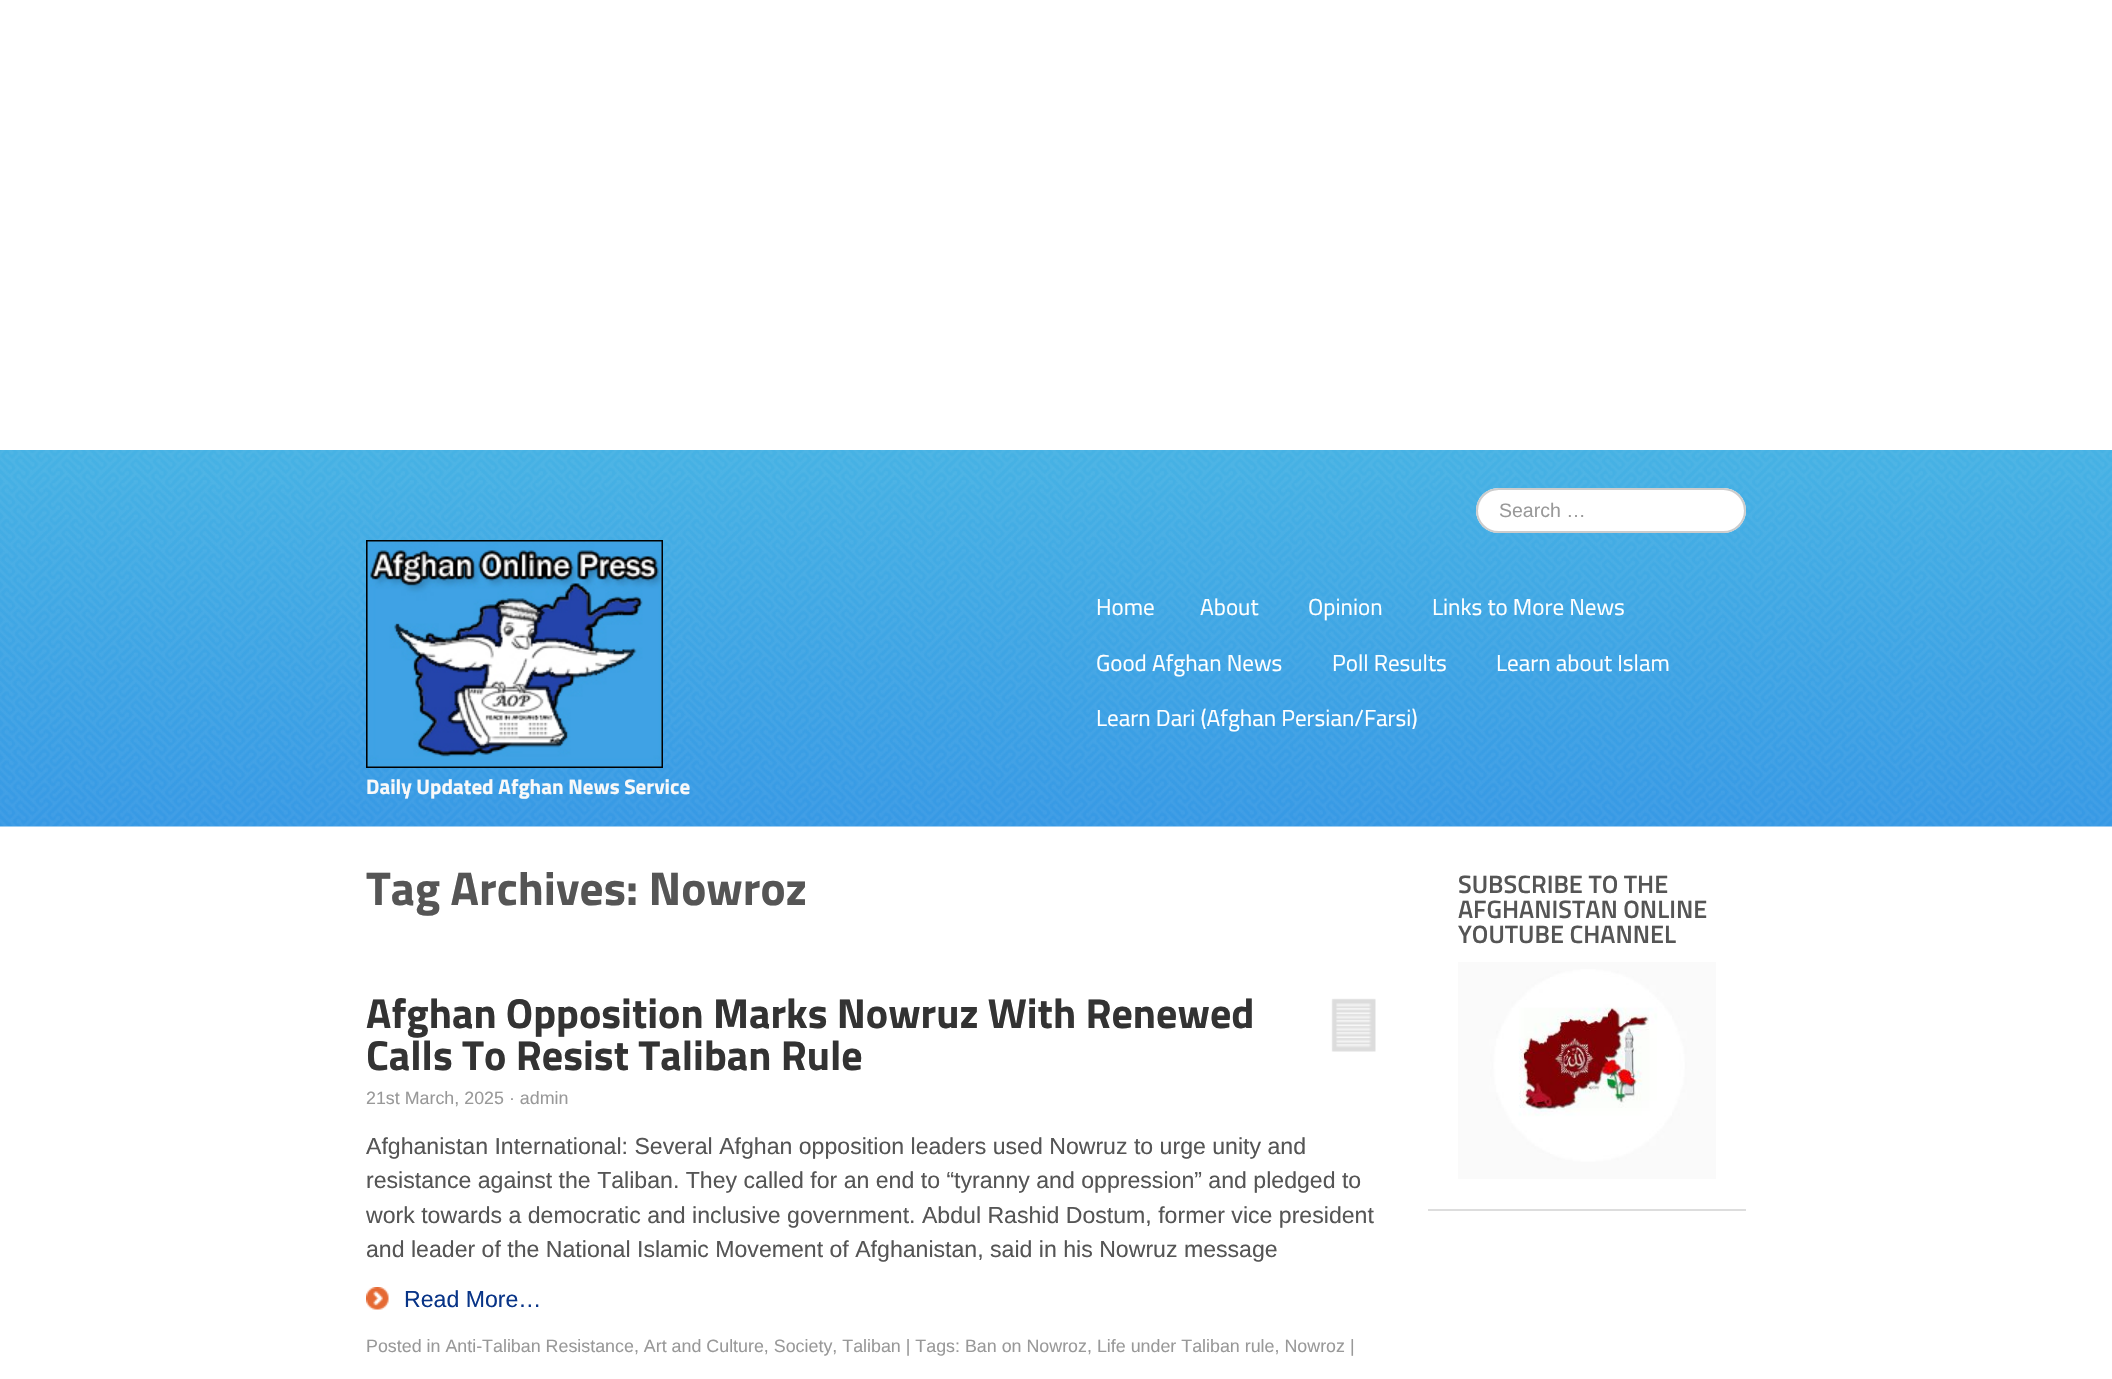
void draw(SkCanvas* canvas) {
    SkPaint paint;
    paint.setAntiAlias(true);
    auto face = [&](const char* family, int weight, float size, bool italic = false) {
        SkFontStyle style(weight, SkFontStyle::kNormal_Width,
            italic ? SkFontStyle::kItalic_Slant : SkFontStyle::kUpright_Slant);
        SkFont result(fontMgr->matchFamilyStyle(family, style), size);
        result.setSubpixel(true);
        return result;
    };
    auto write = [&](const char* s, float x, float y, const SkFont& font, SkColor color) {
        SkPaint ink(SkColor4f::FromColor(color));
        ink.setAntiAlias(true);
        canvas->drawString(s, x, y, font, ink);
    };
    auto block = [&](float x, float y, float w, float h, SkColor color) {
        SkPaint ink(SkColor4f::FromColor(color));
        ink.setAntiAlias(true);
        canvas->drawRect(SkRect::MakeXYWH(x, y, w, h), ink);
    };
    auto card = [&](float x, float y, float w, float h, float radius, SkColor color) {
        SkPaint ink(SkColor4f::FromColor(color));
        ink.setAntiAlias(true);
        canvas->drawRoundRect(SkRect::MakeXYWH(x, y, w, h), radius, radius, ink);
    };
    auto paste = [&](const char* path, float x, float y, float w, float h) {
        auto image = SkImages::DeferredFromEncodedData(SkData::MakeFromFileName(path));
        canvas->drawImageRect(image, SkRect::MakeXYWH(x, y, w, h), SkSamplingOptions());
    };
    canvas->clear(SK_ColorWHITE);
    paste("pic1.png", 0, 450, 2112, 377);
    card(1476, 488, 270, 45, 22.5f, SK_ColorWHITE);
    paint.setColor(SkColorSetRGB(236, 236, 236));
    canvas->drawPath(SkPathBuilder().moveTo(1498, 490).lineTo(1724, 490).cubicTo(1735, 490, 1744, 500, 1744, 512).cubicTo(1744, 515, 1743, 519, 1742, 521).cubicTo(1744, 518, 1745, 514, 1745, 510).cubicTo(1745, 498, 1736, 489, 1724, 489).lineTo(1499, 489).cubicTo(1487, 489, 1478, 498, 1478, 510).lineTo(1478, 511).cubicTo(1479, 499, 1487, 490, 1498, 490).close().detach(), paint);
    paint.setStyle(SkPaint::kStroke_Style);
    paint.setStrokeWidth(2);
    paint.setColor(SkColorSetRGB(204, 204, 204));
    canvas->drawRoundRect(SkRect::MakeXYWH(1477, 489, 268, 43), 21.5f, 21.5f, paint);
    auto kFont1 = face("Liberation Sans", 400, 19.5f);
    write("Search …", 1499, 517, kFont1, SkColorSetRGB(153, 153, 153));
    auto kFont2 = face("Titillium Web", 400, 23.1f);
    write("Home", 1096, 615, kFont2, SK_ColorWHITE);
    write("About", 1200, 615, kFont2, SK_ColorWHITE);
    write("Opinion", 1308, 615, kFont2, SK_ColorWHITE);
    write("Links to More News", 1432, 615, kFont2, SK_ColorWHITE);
    write("Good Afghan News", 1096, 671, kFont2, SK_ColorWHITE);
    write("Poll Results", 1332, 671, kFont2, SK_ColorWHITE);
    write("Learn about Islam", 1496, 671, kFont2, SK_ColorWHITE);
    write("Learn Dari (Afghan Persian/Farsi)", 1096, 726, kFont2, SK_ColorWHITE);
    paste("pic2.png", 366, 540, 297, 228);
    auto kFont3 = face("Titillium Web", 700, 21);
    write("Daily Updated Afghan News Service", 366, 794, kFont3, SkColorSetRGB(249, 249, 249));
    auto kFont4 = face("Titillium Web", 700, 47.25f);
    write("Tag Archives: Nowroz", 366, 905, kFont4, SkColorSetRGB(85, 85, 85));
    auto kFont5 = face("Titillium Web", 700, 42);
    write("Afghan Opposition Marks Nowruz With Renewed", 366, 1028, kFont5, SkColorSetRGB(51, 51, 51));
    write("Calls To Resist Taliban Rule", 366, 1070, kFont5, SkColorSetRGB(51, 51, 51));
    paste("pic3.png", 1331, 998, 45, 54);
    auto kFont6 = face("Liberation Sans", 400, 17.85f);
    write("21st March, 2025 · admin", 366, 1104, kFont6, SkColorSetRGB(153, 153, 153));
    auto kFont7 = face("Liberation Sans", 400, 23.1f);
    write("Afghanistan International: Several Afghan opposition leaders used Nowruz to urge unity and", 366, 1154, kFont7, SkColorSetRGB(85, 85, 85));
    write("resistance against the Taliban. They called for an end to “tyranny and oppression” and pledged to", 366, 1188, kFont7, SkColorSetRGB(85, 85, 85));
    write("work towards a democratic and inclusive government. Abdul Rashid Dostum, former vice president", 366, 1223, kFont7, SkColorSetRGB(85, 85, 85));
    write("and leader of the National Islamic Movement of Afghanistan, said in his Nowruz message", 366, 1257, kFont7, SkColorSetRGB(85, 85, 85));
    paste("pic4.png", 366, 1287, 23, 23);
    write("Read More…", 404, 1307, kFont7, SkColorSetRGB(8, 52, 135));
    write("Posted in Anti-Taliban Resistance, Art and Culture, Society, Taliban | Tags: Ban on Nowroz, Life under Taliban rule, Nowroz |", 366, 1352, kFont6, SkColorSetRGB(153, 153, 153));
    block(1428, 1209, 318, 2, SkColorSetRGB(221, 221, 221));
    auto kFont8 = face("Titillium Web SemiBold", 600, 25.25f);
    write("SUBSCRIBE TO THE", 1458, 893, kFont8, SkColorSetRGB(85, 85, 85));
    write("AFGHANISTAN ONLINE", 1458, 918, kFont8, SkColorSetRGB(85, 85, 85));
    write("YOUTUBE CHANNEL", 1458, 943, kFont8, SkColorSetRGB(85, 85, 85));
    paste("pic5.png", 1458, 962, 258, 217);
}
